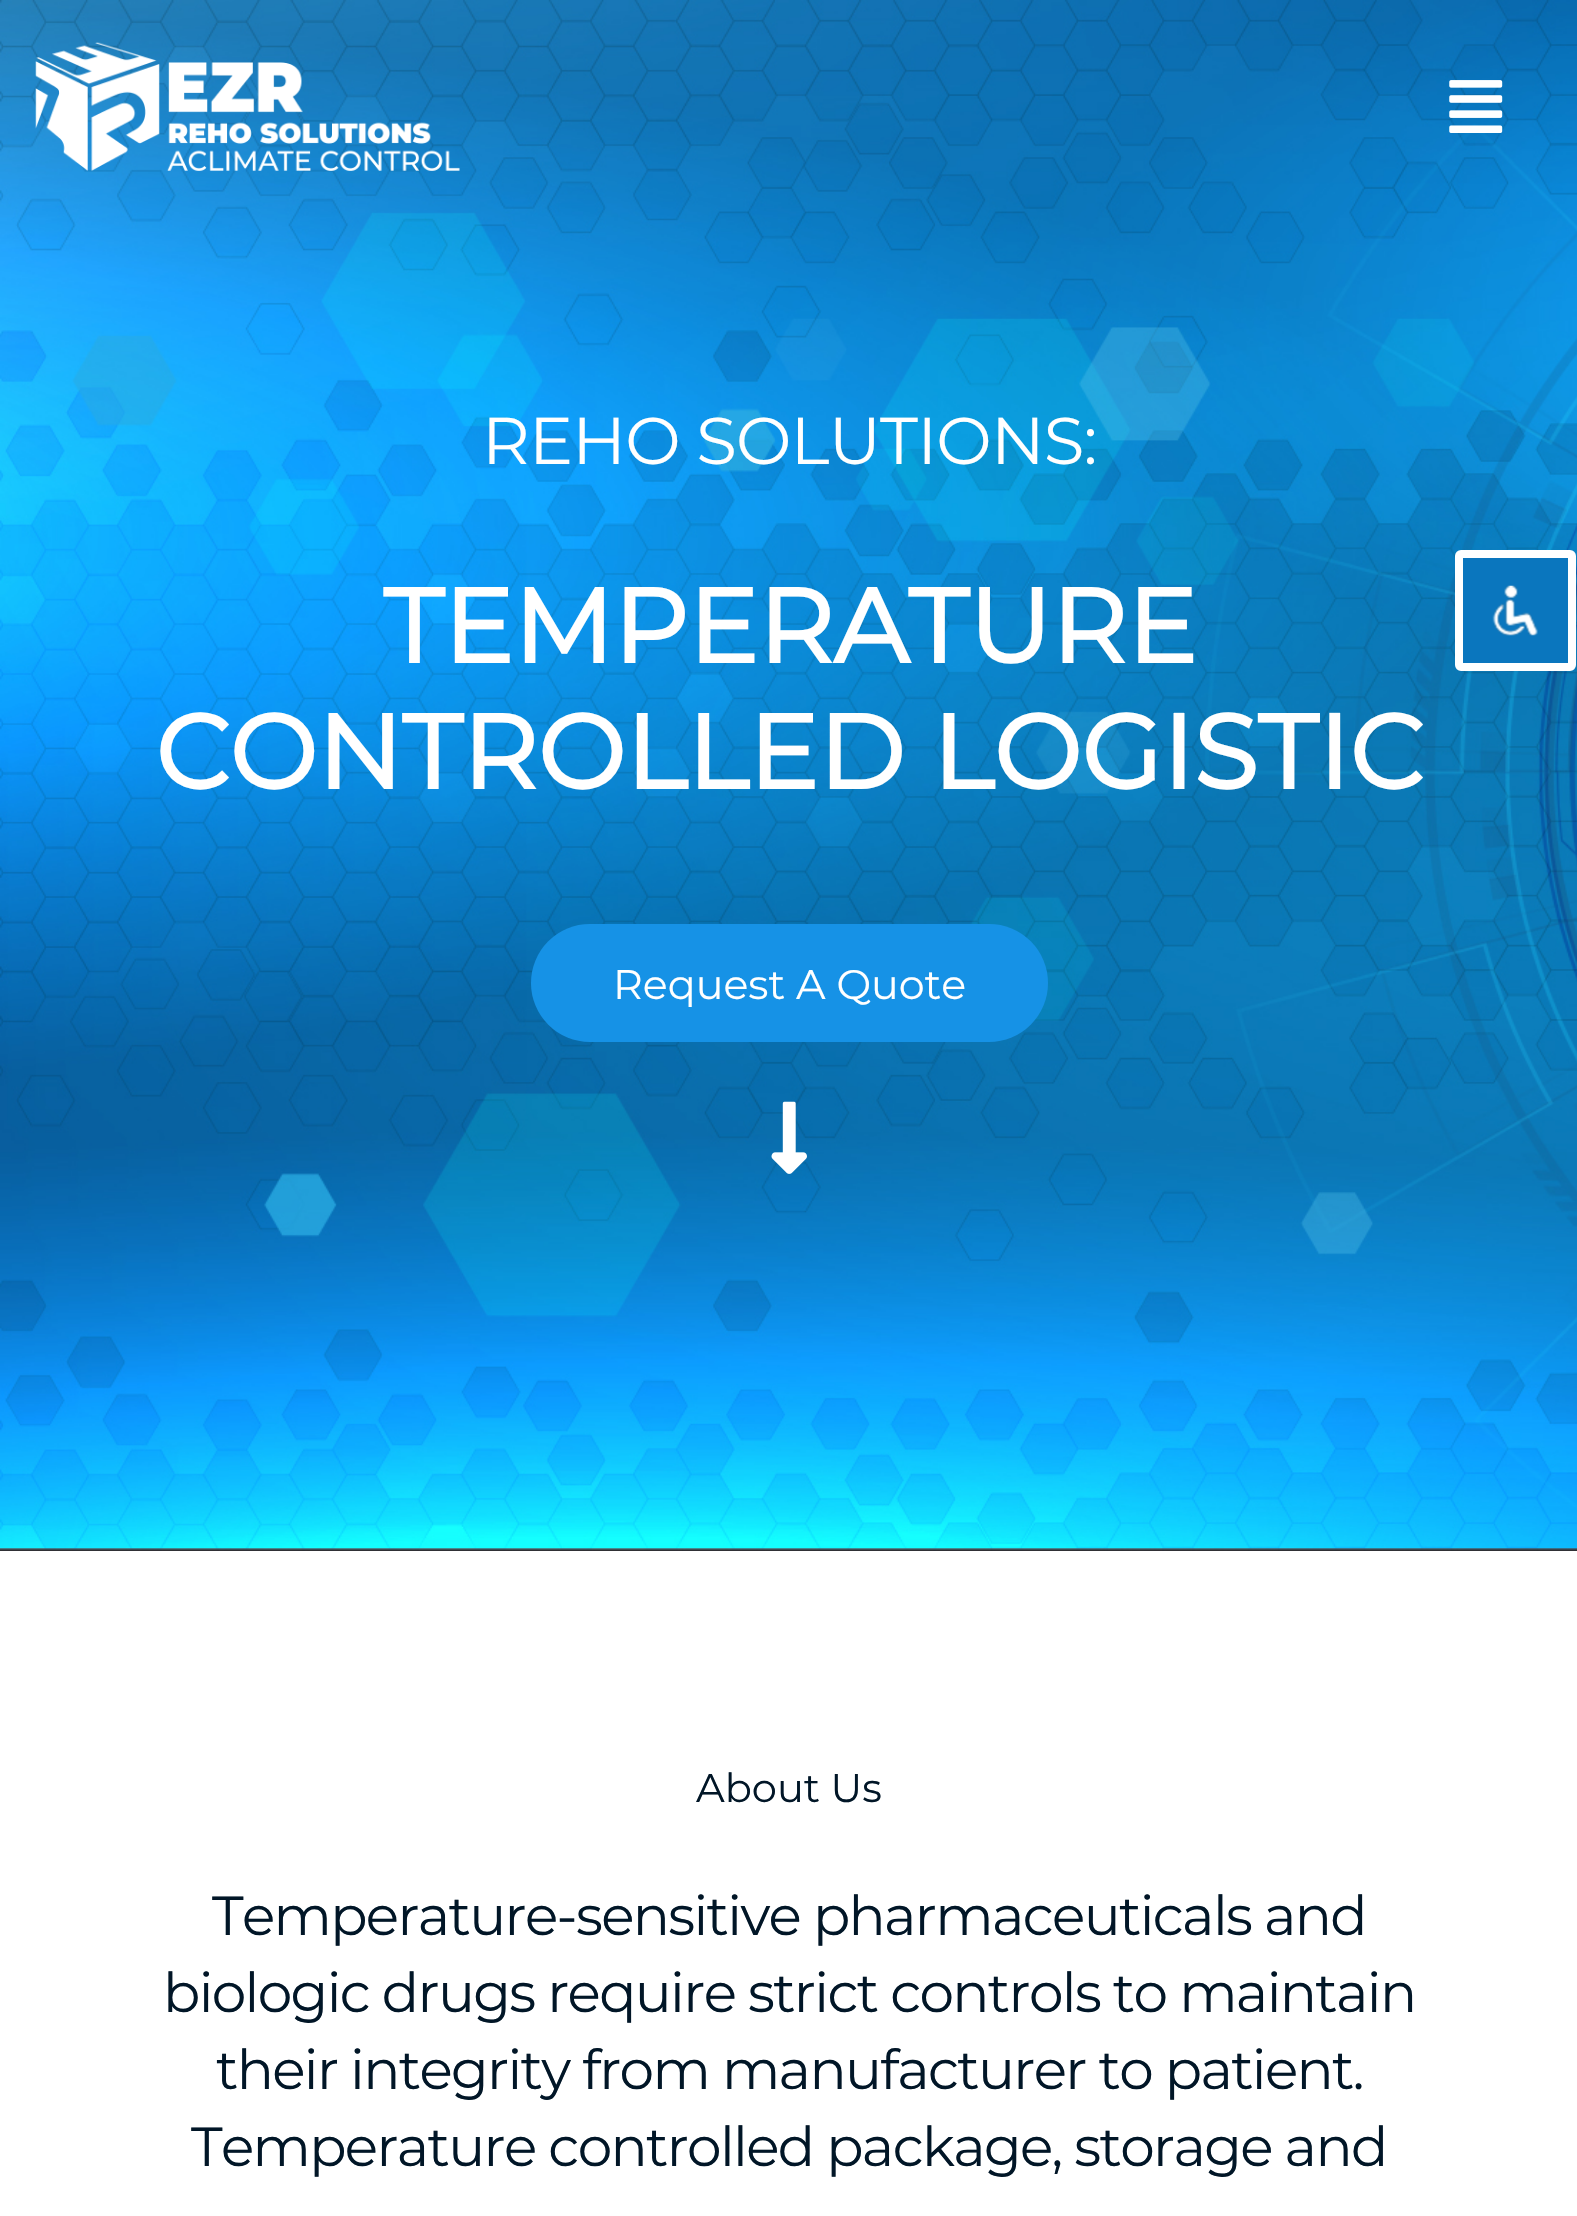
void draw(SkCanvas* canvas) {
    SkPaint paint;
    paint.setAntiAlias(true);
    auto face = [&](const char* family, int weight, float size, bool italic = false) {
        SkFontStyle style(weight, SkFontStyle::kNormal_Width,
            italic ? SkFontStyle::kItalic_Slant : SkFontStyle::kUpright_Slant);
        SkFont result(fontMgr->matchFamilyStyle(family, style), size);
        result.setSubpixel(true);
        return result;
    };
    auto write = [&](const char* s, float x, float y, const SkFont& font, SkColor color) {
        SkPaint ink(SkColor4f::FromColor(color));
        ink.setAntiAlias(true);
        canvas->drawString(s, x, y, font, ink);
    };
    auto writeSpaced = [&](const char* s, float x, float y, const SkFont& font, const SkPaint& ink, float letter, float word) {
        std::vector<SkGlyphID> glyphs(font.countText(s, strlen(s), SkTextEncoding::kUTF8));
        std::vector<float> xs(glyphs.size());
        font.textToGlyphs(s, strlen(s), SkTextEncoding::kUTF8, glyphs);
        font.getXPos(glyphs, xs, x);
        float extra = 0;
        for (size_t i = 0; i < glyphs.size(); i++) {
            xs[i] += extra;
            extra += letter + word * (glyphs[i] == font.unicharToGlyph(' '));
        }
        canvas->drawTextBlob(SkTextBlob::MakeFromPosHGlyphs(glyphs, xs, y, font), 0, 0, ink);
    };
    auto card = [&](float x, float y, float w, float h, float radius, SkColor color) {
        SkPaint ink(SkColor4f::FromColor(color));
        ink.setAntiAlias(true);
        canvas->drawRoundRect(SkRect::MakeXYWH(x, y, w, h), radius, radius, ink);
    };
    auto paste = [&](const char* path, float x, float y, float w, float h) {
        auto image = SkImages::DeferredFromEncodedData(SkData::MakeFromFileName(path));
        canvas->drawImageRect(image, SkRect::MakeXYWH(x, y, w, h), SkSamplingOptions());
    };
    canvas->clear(SK_ColorWHITE);
    paste("pic3.png", 0, 0, 1577, 1551);
    paste("pic1.png", 35, 42, 425, 129);
    paste("pic2.png", 1449, 80, 54, 53);
    auto kFont1 = face("Montserrat", 100, 66);
    paint.setColor(SK_ColorWHITE);
    writeSpaced("REHO SOLUTIONS:", 482, 464, kFont1, paint, -0.8f, 0);
    auto kFont2 = face("Montserrat", 700, 104.5f);
    write("TEMPERATURE", 383, 663, kFont2, SK_ColorWHITE);
    write("CONTROLLED LOGISTIC", 155, 789, kFont2, SK_ColorWHITE);
    card(531, 924, 517, 118, 59, SkColorSetRGB(22, 146, 230));
    auto kFont3 = face("Montserrat", 100, 41.25f);
    write("Request A Quote", 613, 999, kFont3, SK_ColorWHITE);
    paste("pic4.png", 771, 1101, 36, 73);
    auto kFont4 = face("Montserrat", 100, 40);
    write("About Us", 696, 1802, kFont4, SkColorSetRGB(1, 22, 39));
    auto kFont5 = face("Montserrat", 100, 55);
    paint.setColor(SkColorSetRGB(1, 22, 39));
    writeSpaced("Temperature-sensitive pharmaceuticals and", 212, 1935, kFont5, paint, -1.65f, 0);
    writeSpaced("biologic drugs require strict controls to maintain", 163, 2012, kFont5, paint, -1.65f, 0);
    writeSpaced("their integrity from manufacturer to patient.", 216, 2089, kFont5, paint, -1.65f, 0);
    writeSpaced("Temperature controlled package, storage and", 191, 2166, kFont5, paint, -1.65f, 0);
    paint.setColor(SkColorSetRGB(10, 118, 190));
    canvas->drawRoundRect(SkRect::MakeXYWH(1459, 554, 113, 113), 2, 2, paint);
    paint.setStyle(SkPaint::kStroke_Style);
    paint.setStrokeWidth(8);
    paint.setColor(SK_ColorWHITE);
    canvas->drawRoundRect(SkRect::MakeXYWH(1459, 554, 113, 113), 2, 2, paint);
    paste("pic5.png", 1492, 585, 46, 51);
}
